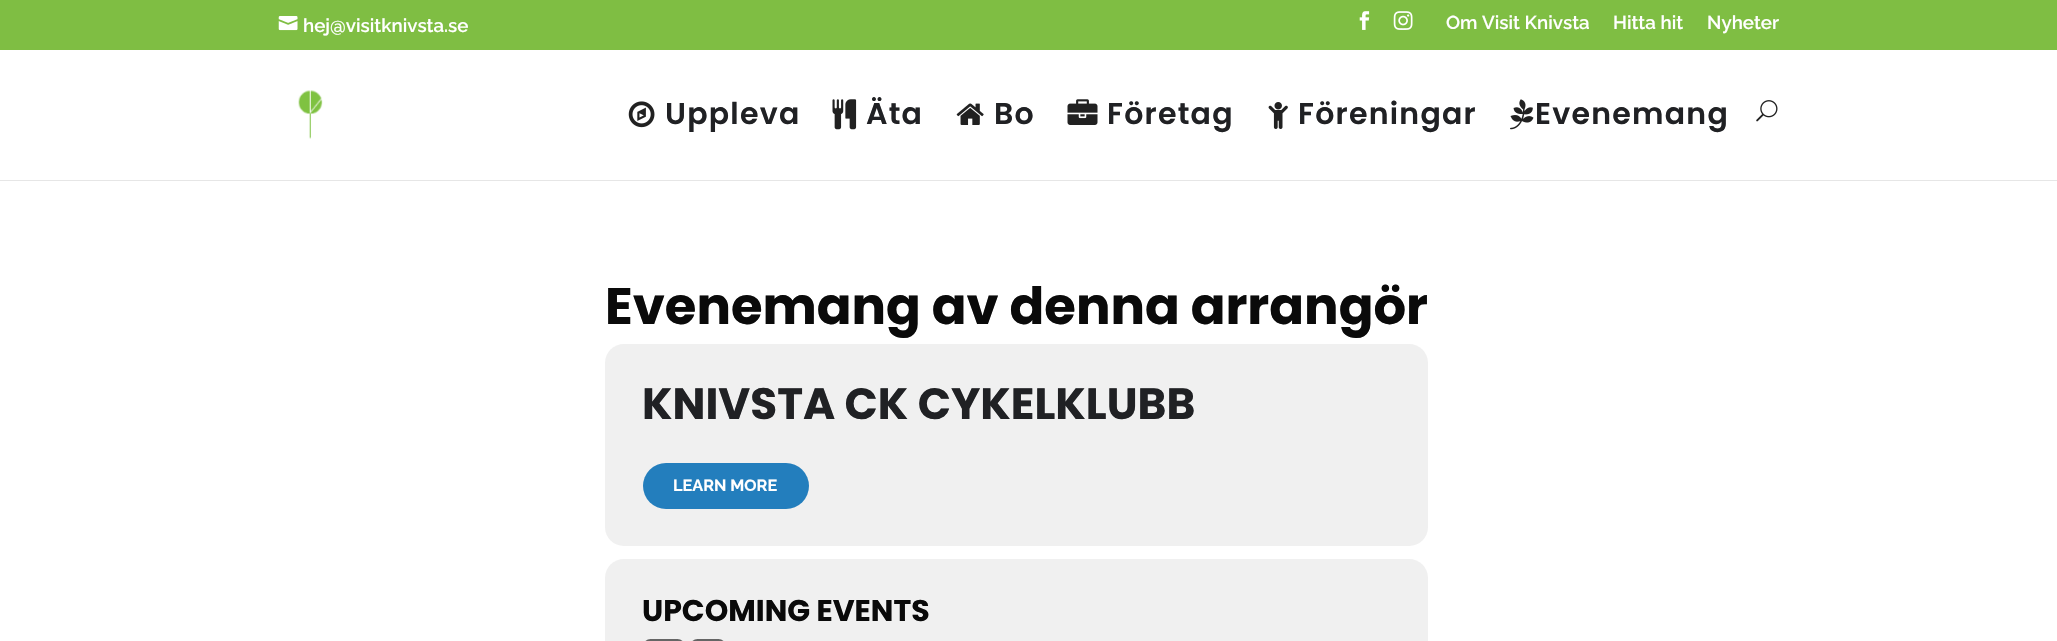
void draw(SkCanvas* canvas) {
    SkPaint paint;
    paint.setAntiAlias(true);
    auto face = [&](const char* family, int weight, float size, bool italic = false) {
        SkFontStyle style(weight, SkFontStyle::kNormal_Width,
            italic ? SkFontStyle::kItalic_Slant : SkFontStyle::kUpright_Slant);
        SkFont result(fontMgr->matchFamilyStyle(family, style), size);
        result.setSubpixel(true);
        return result;
    };
    auto write = [&](const char* s, float x, float y, const SkFont& font, SkColor color) {
        SkPaint ink(SkColor4f::FromColor(color));
        ink.setAntiAlias(true);
        canvas->drawString(s, x, y, font, ink);
    };
    auto writeSpaced = [&](const char* s, float x, float y, const SkFont& font, const SkPaint& ink, float letter, float word) {
        std::vector<SkGlyphID> glyphs(font.countText(s, strlen(s), SkTextEncoding::kUTF8));
        std::vector<float> xs(glyphs.size());
        font.textToGlyphs(s, strlen(s), SkTextEncoding::kUTF8, glyphs);
        font.getXPos(glyphs, xs, x);
        float extra = 0;
        for (size_t i = 0; i < glyphs.size(); i++) {
            xs[i] += extra;
            extra += letter + word * (glyphs[i] == font.unicharToGlyph(' '));
        }
        canvas->drawTextBlob(SkTextBlob::MakeFromPosHGlyphs(glyphs, xs, y, font), 0, 0, ink);
    };
    auto block = [&](float x, float y, float w, float h, SkColor color) {
        SkPaint ink(SkColor4f::FromColor(color));
        ink.setAntiAlias(true);
        canvas->drawRect(SkRect::MakeXYWH(x, y, w, h), ink);
    };
    auto card = [&](float x, float y, float w, float h, float radius, SkColor color) {
        SkPaint ink(SkColor4f::FromColor(color));
        ink.setAntiAlias(true);
        canvas->drawRoundRect(SkRect::MakeXYWH(x, y, w, h), radius, radius, ink);
    };
    auto paste = [&](const char* path, float x, float y, float w, float h) {
        auto image = SkImages::DeferredFromEncodedData(SkData::MakeFromFileName(path));
        canvas->drawImageRect(image, SkRect::MakeXYWH(x, y, w, h), SkSamplingOptions());
    };
    canvas->clear(SK_ColorWHITE);
    block(0, 0, 2057, 50, SkColorSetRGB(127, 190, 67));
    paste("pic1.png", 278, 16, 20, 15);
    auto kFont1 = face("Raleway", 600, 18.75f);
    write("hej@visitknivsta.se", 303, 32, kFont1, SK_ColorWHITE);
    paste("pic2.png", 1359, 11, 11, 19);
    paste("pic3.png", 1393, 11, 20, 19);
    write("Om Visit Knivsta", 1446, 29, kFont1, SK_ColorWHITE);
    write("Hitta hit", 1613, 29, kFont1, SK_ColorWHITE);
    write("Nyheter", 1707, 29, kFont1, SK_ColorWHITE);
    paint.setColor(SkColorSetRGB(230, 230, 230));
    canvas->drawPath(SkPathBuilder().moveTo(0, 180).lineTo(0, 181).lineTo(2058, 181).lineTo(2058, 51).lineTo(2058, 180).close().detach(), paint);
    paste("pic4.png", 298, 90, 25, 49);
    paste("pic5.png", 628, 101, 27, 27);
    auto kFont2 = face("Poppins", 600, 30);
    paint.setColor(SkColorSetRGB(32, 33, 36));
    writeSpaced("Uppleva", 665, 124, kFont2, paint, 1.25f, 0);
    paste("pic6.png", 832, 99, 25, 31);
    writeSpaced("Äta", 866, 124, kFont2, paint, 1.25f, 0);
    paste("pic7.png", 956, 103, 28, 22);
    writeSpaced("Bo", 994, 124, kFont2, paint, 1.25f, 0);
    paste("pic8.png", 1067, 99, 31, 26);
    writeSpaced("Företag", 1107, 124, kFont2, paint, 1.25f, 0);
    paste("pic9.png", 1268, 102, 20, 27);
    writeSpaced("Föreningar", 1298, 124, kFont2, paint, 1.25f, 0);
    paste("pic10.png", 1510, 99, 24, 31);
    writeSpaced("Evenemang", 1535, 124, kFont2, paint, 1.25f, 0);
    paste("pic11.png", 1756, 100, 22, 22);
    auto kFont3 = face("Poppins", 700, 51.25f);
    write("Evenemang av denna arrangör", 605, 324, kFont3, SkColorSetRGB(10, 10, 10));
    card(605, 344, 823, 202, 19, SkColorSetRGB(240, 240, 240));
    auto kFont4 = face("Poppins", 700, 43.75f);
    write("KNIVSTA CK CYKELKLUBB", 642, 419, kFont4, SkColorSetRGB(32, 33, 36));
    card(643, 463, 166, 46, 23, SkColorSetRGB(35, 126, 189));
    auto kFont5 = face("Raleway", 700, 16.25f);
    write("LEARN MORE", 673, 491, kFont5, SK_ColorWHITE);
    card(605, 559, 823, 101, 19, SkColorSetRGB(240, 240, 240));
    auto kFont6 = face("Poppins", 700, 30);
    write("UPCOMING EVENTS", 642, 621, kFont6, SkColorSetRGB(10, 10, 10));
    card(643, 639, 42, 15, 13, SkColorSetRGB(101, 101, 101));
    card(690, 639, 36, 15, 13, SkColorSetRGB(101, 101, 101));
}
